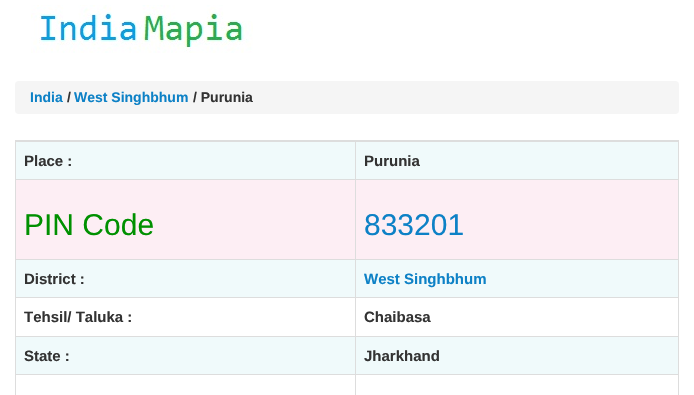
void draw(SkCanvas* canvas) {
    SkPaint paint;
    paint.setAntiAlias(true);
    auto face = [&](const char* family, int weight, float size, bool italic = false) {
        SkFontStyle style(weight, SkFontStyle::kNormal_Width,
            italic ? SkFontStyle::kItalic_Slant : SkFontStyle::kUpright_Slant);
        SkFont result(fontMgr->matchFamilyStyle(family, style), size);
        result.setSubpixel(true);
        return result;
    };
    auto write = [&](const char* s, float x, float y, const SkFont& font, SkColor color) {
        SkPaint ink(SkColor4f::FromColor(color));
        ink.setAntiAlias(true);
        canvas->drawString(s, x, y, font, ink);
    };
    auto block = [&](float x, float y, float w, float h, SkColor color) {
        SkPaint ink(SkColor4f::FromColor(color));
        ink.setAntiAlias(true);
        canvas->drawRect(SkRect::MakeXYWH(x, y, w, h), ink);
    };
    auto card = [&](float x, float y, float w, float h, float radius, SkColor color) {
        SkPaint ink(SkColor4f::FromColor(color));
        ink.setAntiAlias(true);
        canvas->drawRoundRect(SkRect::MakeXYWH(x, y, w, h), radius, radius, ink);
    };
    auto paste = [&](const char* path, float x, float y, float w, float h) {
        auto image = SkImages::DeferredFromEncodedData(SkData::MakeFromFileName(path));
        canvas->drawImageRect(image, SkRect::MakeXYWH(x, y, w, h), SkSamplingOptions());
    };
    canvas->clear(SK_ColorWHITE);
    paste("pic1.png", 31, 5, 222, 48);
    card(15, 81, 664, 33, 4, SkColorSetRGB(245, 245, 245));
    auto kFont1 = face("Liberation Sans", 700, 14);
    write("India", 30, 102, kFont1, SkColorSetRGB(13, 129, 198));
    write("/", 67, 102, kFont1, SkColorSetRGB(51, 51, 51));
    write("West Singhbhum", 74, 102, kFont1, SkColorSetRGB(13, 129, 198));
    write("/ Purunia", 193, 102, kFont1, SkColorSetRGB(51, 51, 51));
    paint.setStyle(SkPaint::kStroke_Style);
    paint.setStrokeWidth(1);
    paint.setColor(SkColorSetRGB(221, 221, 221));
    canvas->drawRect(SkRect::MakeXYWH(15.5f, 140.5f, 663, 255), paint);
    block(16, 142, 662, 37, SkColorSetRGB(240, 250, 251));
    block(355, 141, 323, 1, SkColorSetRGB(221, 221, 221));
    block(355, 179, 323, 1, SkColorSetRGB(221, 221, 221));
    block(355, 259, 323, 1, SkColorSetRGB(221, 221, 221));
    block(16, 260, 662, 37, SkColorSetRGB(240, 250, 251));
    block(355, 297, 323, 1, SkColorSetRGB(221, 221, 221));
    block(355, 336, 323, 1, SkColorSetRGB(221, 221, 221));
    block(16, 337, 662, 37, SkColorSetRGB(240, 250, 251));
    block(355, 374, 323, 1, SkColorSetRGB(221, 221, 221));
    block(355, 374, 1, 21, SkColorSetRGB(221, 221, 221));
    block(16, 374, 340, 1, SkColorSetRGB(221, 221, 221));
    block(355, 336, 1, 39, SkColorSetRGB(221, 221, 221));
    block(16, 336, 340, 1, SkColorSetRGB(221, 221, 221));
    block(355, 297, 1, 40, SkColorSetRGB(221, 221, 221));
    block(16, 297, 340, 1, SkColorSetRGB(221, 221, 221));
    block(355, 259, 1, 39, SkColorSetRGB(221, 221, 221));
    block(16, 259, 340, 1, SkColorSetRGB(221, 221, 221));
    block(355, 179, 1, 81, SkColorSetRGB(221, 221, 221));
    block(16, 179, 340, 1, SkColorSetRGB(221, 221, 221));
    block(355, 141, 1, 39, SkColorSetRGB(221, 221, 221));
    block(16, 141, 340, 1, SkColorSetRGB(221, 221, 221));
    auto kFont2 = face("Liberation Sans", 700, 15);
    write("Place :", 24, 166, kFont2, SkColorSetRGB(51, 51, 51));
    write("Purunia", 364, 166, kFont2, SkColorSetRGB(51, 51, 51));
    block(16, 180, 339, 79, SkColorSetRGB(253, 238, 244));
    auto kFont3 = face("Liberation Sans", 400, 30);
    write("PIN Code", 24, 235, kFont3, SkColorSetRGB(0, 144, 0));
    block(356, 180, 322, 79, SkColorSetRGB(253, 238, 244));
    write("833201", 364, 235, kFont3, SkColorSetRGB(13, 129, 198));
    write("District :", 24, 284, kFont2, SkColorSetRGB(51, 51, 51));
    write("West Singhbhum", 364, 284, kFont2, SkColorSetRGB(13, 129, 198));
    write("Tehsil/ Taluka :", 24, 322, kFont2, SkColorSetRGB(51, 51, 51));
    write("Chaibasa", 364, 322, kFont2, SkColorSetRGB(51, 51, 51));
    write("State :", 24, 361, kFont2, SkColorSetRGB(51, 51, 51));
    write("Jharkhand", 364, 361, kFont2, SkColorSetRGB(51, 51, 51));
}
